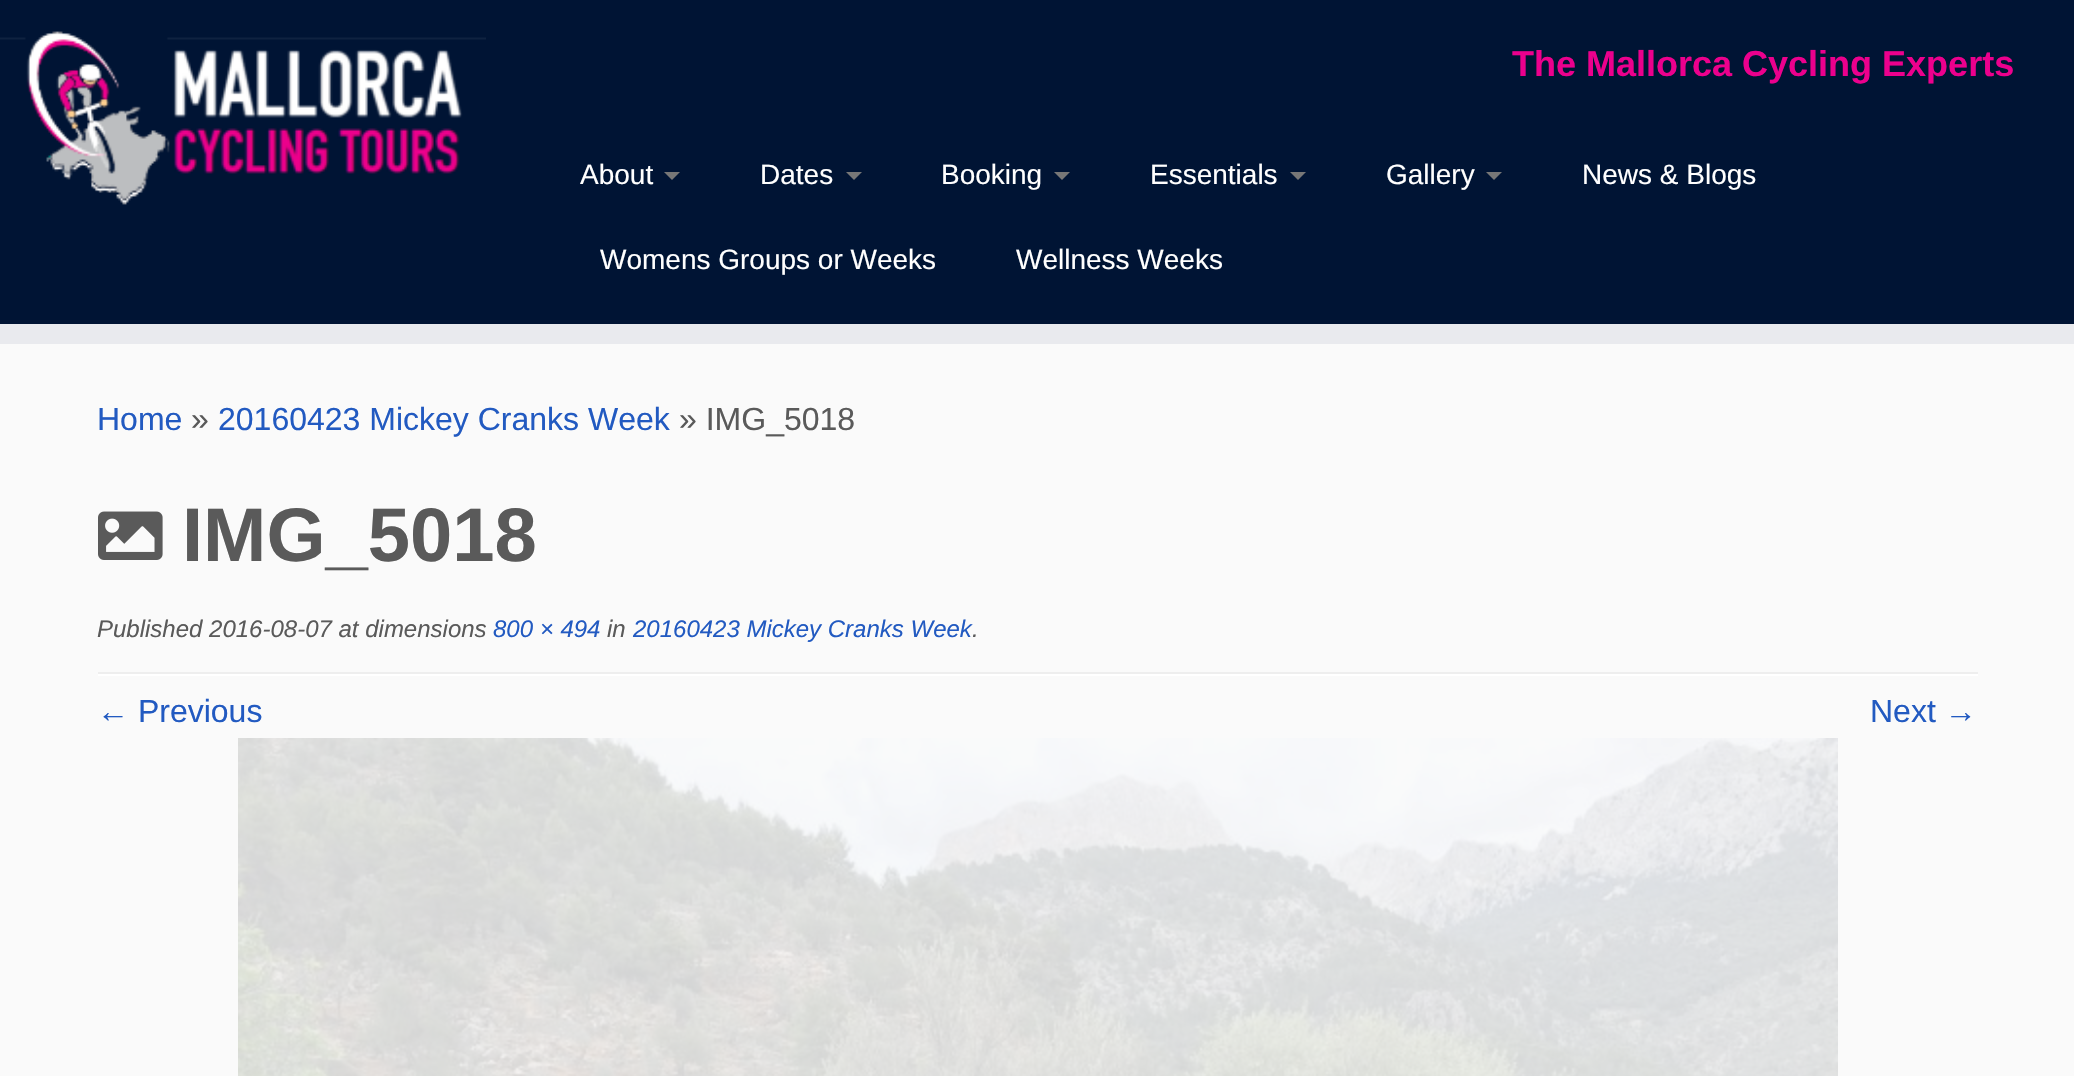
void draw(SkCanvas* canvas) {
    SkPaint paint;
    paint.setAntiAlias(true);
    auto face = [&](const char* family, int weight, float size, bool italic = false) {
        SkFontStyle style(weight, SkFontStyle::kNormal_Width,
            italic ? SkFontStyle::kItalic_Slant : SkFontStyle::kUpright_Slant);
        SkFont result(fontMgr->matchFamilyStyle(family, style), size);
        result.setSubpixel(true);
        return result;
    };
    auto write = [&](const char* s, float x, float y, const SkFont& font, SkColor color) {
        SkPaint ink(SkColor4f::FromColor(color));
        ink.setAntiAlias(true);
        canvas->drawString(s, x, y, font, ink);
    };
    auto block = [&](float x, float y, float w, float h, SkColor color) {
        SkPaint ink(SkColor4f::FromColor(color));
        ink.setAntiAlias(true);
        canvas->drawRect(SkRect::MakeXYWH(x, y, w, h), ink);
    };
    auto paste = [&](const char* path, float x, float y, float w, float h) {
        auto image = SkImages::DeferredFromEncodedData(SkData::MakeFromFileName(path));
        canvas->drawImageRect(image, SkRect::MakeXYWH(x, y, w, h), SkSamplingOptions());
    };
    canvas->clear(SkColorSetRGB(250, 250, 250));
    block(0, 0, 2074, 324, SkColorSetRGB(0, 20, 52));
    block(0, 324, 2074, 20, SkColorSetRGB(233, 234, 238));
    paste("pic1.png", 0, 31, 486, 174);
    auto kFont1 = face("Liberation Sans", 700, 36);
    write("The Mallorca Cycling Experts", 1512, 76, kFont1, SkColorSetRGB(236, 0, 141));
    auto kFont2 = face("Liberation Sans", 400, 28);
    write("About", 580, 184, kFont2, SK_ColorWHITE);
    paint.setColor(SkColorSetRGB(119, 119, 119));
    canvas->drawPath(SkPathBuilder().moveTo(664, 172).lineTo(680, 172).lineTo(672, 180).close().detach(), paint);
    write("Dates", 760, 184, kFont2, SK_ColorWHITE);
    canvas->drawPath(SkPathBuilder().moveTo(846, 172).lineTo(862, 172).lineTo(854, 180).close().detach(), paint);
    write("Booking", 941, 184, kFont2, SK_ColorWHITE);
    canvas->drawPath(SkPathBuilder().moveTo(1054, 172).lineTo(1070, 172).lineTo(1062, 180).close().detach(), paint);
    write("Essentials", 1150, 184, kFont2, SK_ColorWHITE);
    canvas->drawPath(SkPathBuilder().moveTo(1290, 172).lineTo(1306, 172).lineTo(1298, 180).close().detach(), paint);
    write("Gallery", 1386, 184, kFont2, SK_ColorWHITE);
    canvas->drawPath(SkPathBuilder().moveTo(1486, 172).lineTo(1502, 172).lineTo(1494, 180).close().detach(), paint);
    write("News & Blogs", 1582, 184, kFont2, SK_ColorWHITE);
    write("Womens Groups or Weeks", 600, 269, kFont2, SK_ColorWHITE);
    write("Wellness Weeks", 1016, 269, kFont2, SK_ColorWHITE);
    auto kFont3 = face("Liberation Sans", 400, 32);
    write("Home", 97, 430, kFont3, SkColorSetRGB(34, 90, 193));
    write("»", 191, 430, kFont3, SkColorSetRGB(90, 90, 90));
    write("20160423 Mickey Cranks Week", 218, 430, kFont3, SkColorSetRGB(34, 90, 193));
    write("» IMG_5018", 679, 430, kFont3, SkColorSetRGB(90, 90, 90));
    paste("pic2.png", 98, 511, 65, 49);
    auto kFont4 = face("Liberation Sans", 700, 76);
    write("IMG_5018", 182, 561, kFont4, SkColorSetRGB(90, 90, 90));
    auto kFont5 = face("Liberation Sans", 400, 24, true);
    write("Published 2016-08-07 at dimensions", 97, 637, kFont5, SkColorSetRGB(90, 90, 90));
    write("800 × 494", 493, 637, kFont5, SkColorSetRGB(34, 90, 193));
    write("in", 607, 637, kFont5, SkColorSetRGB(90, 90, 90));
    write("20160423 Mickey Cranks Week", 633, 637, kFont5, SkColorSetRGB(34, 90, 193));
    write(".", 972, 637, kFont5, SkColorSetRGB(90, 90, 90));
    block(98, 672, 1880, 2, SkColorSetRGB(238, 238, 238));
    block(98, 674, 1880, 2, SK_ColorWHITE);
    write("← Previous", 97, 722, kFont3, SkColorSetRGB(34, 90, 193));
    write("Next →", 1870, 722, kFont3, SkColorSetRGB(34, 90, 193));
    paste("pic3.png", 238, 738, 1600, 338);
}
